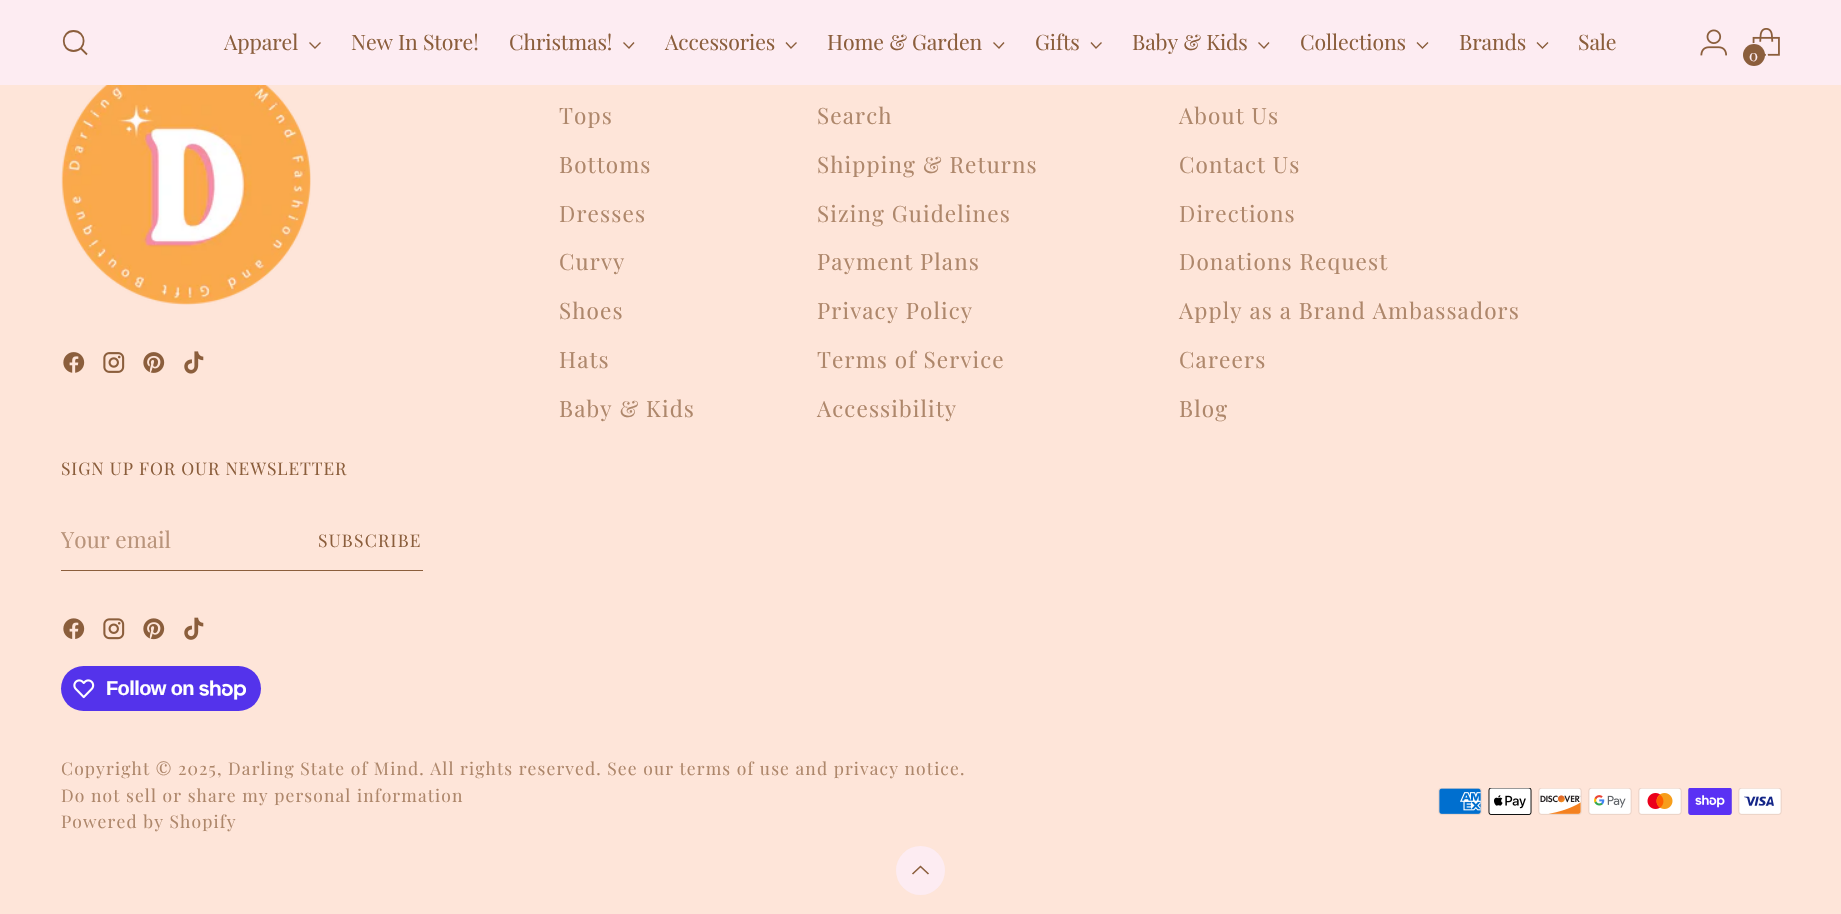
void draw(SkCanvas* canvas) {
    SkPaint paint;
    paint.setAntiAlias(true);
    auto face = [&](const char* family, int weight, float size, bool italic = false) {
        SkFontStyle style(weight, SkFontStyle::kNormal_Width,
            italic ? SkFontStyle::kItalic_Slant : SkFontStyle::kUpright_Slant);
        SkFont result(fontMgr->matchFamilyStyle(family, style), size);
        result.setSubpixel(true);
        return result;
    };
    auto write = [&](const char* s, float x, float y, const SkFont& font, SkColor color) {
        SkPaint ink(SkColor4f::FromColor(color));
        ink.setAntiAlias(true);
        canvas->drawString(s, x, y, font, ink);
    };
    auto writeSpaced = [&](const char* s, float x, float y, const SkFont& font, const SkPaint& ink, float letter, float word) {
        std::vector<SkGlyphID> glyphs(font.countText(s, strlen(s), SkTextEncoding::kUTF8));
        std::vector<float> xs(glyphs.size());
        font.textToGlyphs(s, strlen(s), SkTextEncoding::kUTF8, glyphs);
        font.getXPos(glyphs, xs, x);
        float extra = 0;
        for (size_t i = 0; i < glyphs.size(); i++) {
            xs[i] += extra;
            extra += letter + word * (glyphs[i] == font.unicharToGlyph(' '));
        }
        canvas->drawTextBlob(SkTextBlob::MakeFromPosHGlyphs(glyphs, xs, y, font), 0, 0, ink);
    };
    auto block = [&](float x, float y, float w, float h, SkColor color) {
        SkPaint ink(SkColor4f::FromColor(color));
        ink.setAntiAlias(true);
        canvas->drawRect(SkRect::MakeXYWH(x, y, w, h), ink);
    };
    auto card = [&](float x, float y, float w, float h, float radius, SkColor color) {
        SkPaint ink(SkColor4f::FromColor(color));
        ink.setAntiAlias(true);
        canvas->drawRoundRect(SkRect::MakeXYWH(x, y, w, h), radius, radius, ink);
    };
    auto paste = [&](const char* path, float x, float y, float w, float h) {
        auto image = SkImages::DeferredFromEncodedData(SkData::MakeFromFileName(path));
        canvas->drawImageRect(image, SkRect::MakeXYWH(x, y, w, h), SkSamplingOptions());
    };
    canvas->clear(SkColorSetRGB(254, 229, 217));
    block(0, 0, 1841, 85, SkColorSetRGB(253, 236, 242));
    paint.setStyle(SkPaint::kStroke_Style);
    paint.setStrokeWidth(1.8f);
    paint.setStrokeCap(SkPaint::kRound_Cap);
    paint.setColor(SkColorSetRGB(139, 94, 60));
    canvas->drawPath(SkPathBuilder().moveTo(73.5f, 51).cubicTo(87, 51, 87, 31, 73.5f, 31).cubicTo(60.5f, 31, 60.5f, 51, 73.5f, 51).close().detach(), paint);
    paint.setStrokeCap(SkPaint::kButt_Cap);
    canvas->drawPath(SkPathBuilder().moveTo(81, 48.5f).lineTo(87, 54.5f).detach(), paint);
    auto kFont1 = face("Playfair Display", 400, 21.25f);
    paint.setStyle(SkPaint::kFill_Style);
    writeSpaced("Apparel", 224, 50, kFont1, paint, -0.1f, 0);
    paint.setStyle(SkPaint::kStroke_Style);
    paint.setStrokeWidth(1.4f);
    canvas->drawPath(SkPathBuilder().moveTo(309.5f, 42.5f).lineTo(315, 48).lineTo(320.5f, 42.5f).detach(), paint);
    paint.setStyle(SkPaint::kFill_Style);
    writeSpaced("New In Store!", 351, 50, kFont1, paint, -0.1f, 0);
    writeSpaced("Christmas!", 509, 50, kFont1, paint, -0.1f, 0);
    paint.setStyle(SkPaint::kStroke_Style);
    canvas->drawPath(SkPathBuilder().moveTo(623.5f, 42.5f).lineTo(629, 48).lineTo(634, 42.5f).detach(), paint);
    paint.setStyle(SkPaint::kFill_Style);
    writeSpaced("Accessories", 665, 50, kFont1, paint, -0.1f, 0);
    paint.setStyle(SkPaint::kStroke_Style);
    canvas->drawPath(SkPathBuilder().moveTo(786, 42.5f).lineTo(791, 48).lineTo(796.5f, 42.5f).detach(), paint);
    paint.setStyle(SkPaint::kFill_Style);
    writeSpaced("Home & Garden", 827, 50, kFont1, paint, -0.1f, 0);
    paint.setStyle(SkPaint::kStroke_Style);
    canvas->drawPath(SkPathBuilder().moveTo(993.5f, 42.5f).lineTo(999, 48).lineTo(1004, 42.5f).detach(), paint);
    paint.setStyle(SkPaint::kFill_Style);
    writeSpaced("Gifts", 1035, 50, kFont1, paint, -0.1f, 0);
    paint.setStyle(SkPaint::kStroke_Style);
    canvas->drawPath(SkPathBuilder().moveTo(1091, 42.5f).lineTo(1096, 48).lineTo(1101.5f, 42.5f).detach(), paint);
    paint.setStyle(SkPaint::kFill_Style);
    writeSpaced("Baby & Kids", 1132, 50, kFont1, paint, -0.1f, 0);
    paint.setStyle(SkPaint::kStroke_Style);
    canvas->drawPath(SkPathBuilder().moveTo(1258.5f, 42.5f).lineTo(1264, 48).lineTo(1269, 42.5f).detach(), paint);
    paint.setStyle(SkPaint::kFill_Style);
    writeSpaced("Collections", 1300, 50, kFont1, paint, -0.1f, 0);
    paint.setStyle(SkPaint::kStroke_Style);
    canvas->drawPath(SkPathBuilder().moveTo(1417, 42.5f).lineTo(1422.5f, 48).lineTo(1428, 42.5f).detach(), paint);
    paint.setStyle(SkPaint::kFill_Style);
    writeSpaced("Brands", 1459, 50, kFont1, paint, -0.1f, 0);
    paint.setStyle(SkPaint::kStroke_Style);
    canvas->drawPath(SkPathBuilder().moveTo(1537, 42.5f).lineTo(1542.5f, 48).lineTo(1548, 42.5f).detach(), paint);
    paint.setStyle(SkPaint::kFill_Style);
    writeSpaced("Sale", 1578, 50, kFont1, paint, -0.1f, 0);
    paste("pic1.png", 1700, 29, 27, 27);
    paste("pic2.png", 1752, 28, 28, 28);
    paint.setStyle(SkPaint::kStroke_Style);
    paint.setStrokeWidth(2);
    paint.setColor(SkColorSetRGB(253, 236, 242));
    canvas->drawRoundRect(SkRect::MakeXYWH(1742, 44, 25, 24), 12, 12, paint);
    paint.setStyle(SkPaint::kFill_Style);
    paint.setColor(SkColorSetRGB(139, 94, 60));
    canvas->drawCircle(1754, 55, 11, paint);
    auto kFont2 = face("Playfair Display", 400, 15);
    paint.setColor(SkColorSetRGB(253, 236, 242));
    writeSpaced("0", 1749, 61, kFont2, paint, 1.12f, 0);
    paste("pic3.png", 61, 85, 250, 220);
    paste("pic4.png", 63, 352, 22, 21);
    paste("pic5.png", 103, 352, 22, 21);
    paste("pic6.png", 143, 352, 22, 21);
    paste("pic7.png", 184, 351, 20, 23);
    auto kFont3 = face("Playfair Display", 400, 22.5f);
    paint.setColor(SkColorSetRGB(174, 135, 107));
    writeSpaced("Tops", 559, 124, kFont3, paint, 1.12f, 0);
    writeSpaced("Bottoms", 559, 173, kFont3, paint, 1.12f, 0);
    writeSpaced("Dresses", 559, 222, kFont3, paint, 1.12f, 0);
    writeSpaced("Curvy", 559, 270, kFont3, paint, 1.12f, 0);
    writeSpaced("Shoes", 559, 319, kFont3, paint, 1.12f, 0);
    writeSpaced("Hats", 559, 368, kFont3, paint, 1.12f, 0);
    writeSpaced("Baby & Kids", 559, 417, kFont3, paint, 1.12f, 0);
    writeSpaced("Search", 817, 124, kFont3, paint, 1.12f, 0);
    writeSpaced("Shipping & Returns", 817, 173, kFont3, paint, 1.12f, 0);
    writeSpaced("Sizing Guidelines", 817, 222, kFont3, paint, 1.12f, 0);
    writeSpaced("Payment Plans", 817, 270, kFont3, paint, 1.12f, 0);
    writeSpaced("Privacy Policy", 817, 319, kFont3, paint, 1.12f, 0);
    writeSpaced("Terms of Service", 817, 368, kFont3, paint, 1.12f, 0);
    writeSpaced("Accessibility", 817, 417, kFont3, paint, 1.12f, 0);
    writeSpaced("About Us", 1179, 124, kFont3, paint, 1.12f, 0);
    writeSpaced("Contact Us", 1179, 173, kFont3, paint, 1.12f, 0);
    writeSpaced("Directions", 1179, 222, kFont3, paint, 1.12f, 0);
    writeSpaced("Donations Request", 1179, 270, kFont3, paint, 1.12f, 0);
    writeSpaced("Apply as a Brand Ambassadors", 1179, 319, kFont3, paint, 1.12f, 0);
    writeSpaced("Careers", 1179, 368, kFont3, paint, 1.12f, 0);
    writeSpaced("Blog", 1179, 417, kFont3, paint, 1.12f, 0);
    auto kFont4 = face("Playfair Display", 400, 17.48f);
    paint.setColor(SkColorSetRGB(139, 94, 60));
    writeSpaced("SIGN UP FOR OUR NEWSLETTER", 61, 475, kFont4, paint, 0.9f, 0);
    block(61, 570, 362, 1, SkColorSetRGB(139, 94, 60));
    write("Your email", 61, 548, kFont3, SkColorSetRGB(185, 148, 123));
    writeSpaced("SUBSCRIBE", 318, 547, kFont4, paint, 1.25f, 0);
    paste("pic8.png", 63, 618, 22, 21);
    paste("pic9.png", 103, 618, 22, 22);
    paste("pic10.png", 143, 618, 22, 22);
    paste("pic11.png", 184, 617, 20, 23);
    card(61, 666, 200, 45, 22.5f, SkColorSetRGB(84, 51, 235));
    paste("pic12.png", 73, 679, 22, 20);
    auto kFont5 = face("Liberation Sans", 700, 20);
    paint.setColor(SK_ColorWHITE);
    writeSpaced("Follow on", 106, 695, kFont5, paint, -0.6f, 0);
    paste("pic13.png", 199, 680, 47, 20);
    paint.setColor(SkColorSetRGB(174, 135, 107));
    writeSpaced("Copyright © 2025, Darling State of Mind. All rights reserved. See our terms of use and privacy notice.", 61, 775, kFont4, paint, 1.12f, 0);
    writeSpaced("Do not sell or share my personal information", 61, 802, kFont4, paint, 1.12f, 0);
    writeSpaced("Powered by Shopify", 61, 828, kFont4, paint, 1.12f, 0);
    paste("pic14.png", 1438, 788, 44, 27);
    paste("pic15.png", 1488, 788, 44, 27);
    paste("pic16.png", 1538, 788, 44, 27);
    paste("pic17.png", 1588, 788, 44, 27);
    paste("pic18.png", 1638, 788, 44, 27);
    paste("pic19.png", 1688, 788, 44, 27);
    paste("pic20.png", 1738, 788, 44, 27);
    paint.setColor(SkColorSetRGB(253, 236, 242));
    canvas->drawCircle(920.5f, 870.5f, 24.5f, paint);
    paint.setStyle(SkPaint::kStroke_Style);
    paint.setStrokeWidth(1.6f);
    paint.setColor(SkColorSetRGB(139, 94, 60));
    canvas->drawPath(SkPathBuilder().moveTo(928.5f, 874).lineTo(920.5f, 866.5f).lineTo(912.5f, 874).detach(), paint);
}
